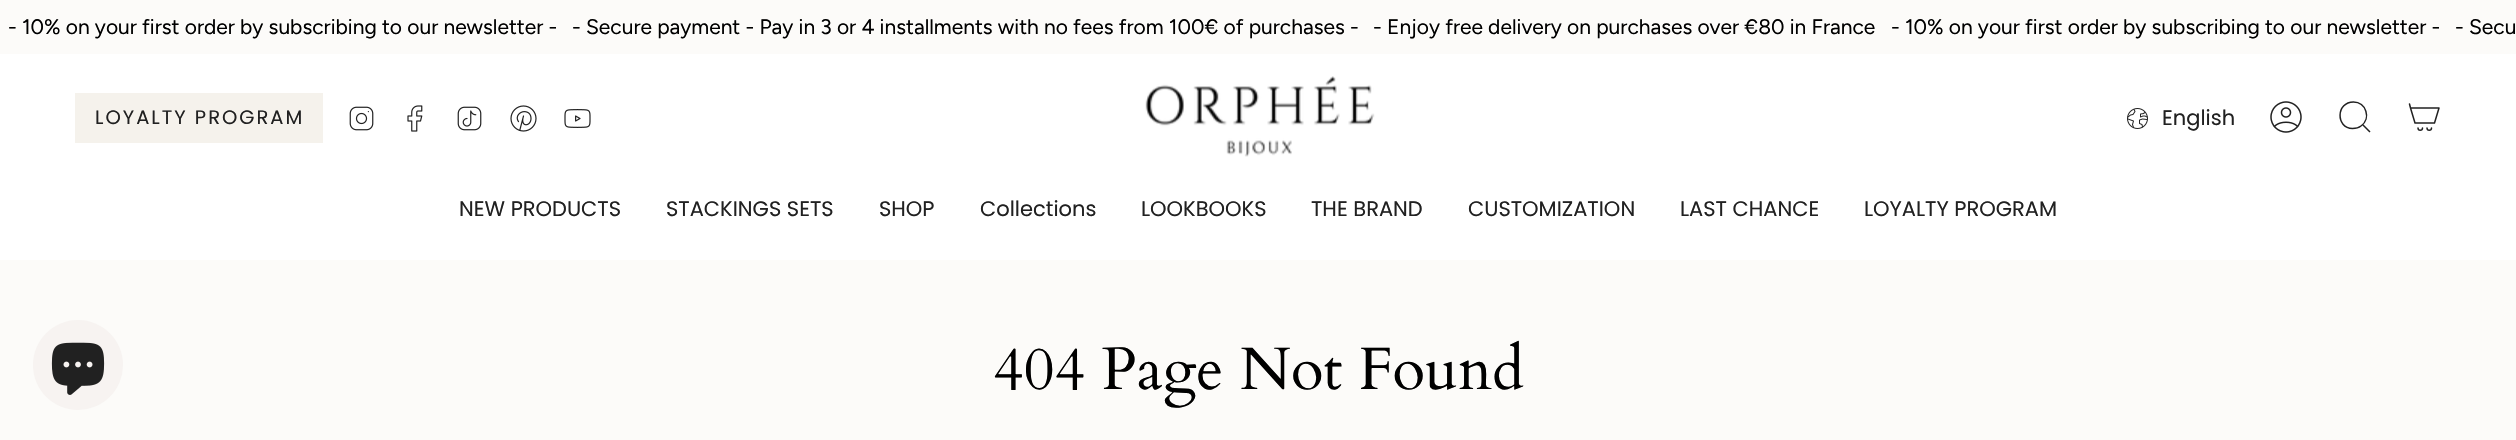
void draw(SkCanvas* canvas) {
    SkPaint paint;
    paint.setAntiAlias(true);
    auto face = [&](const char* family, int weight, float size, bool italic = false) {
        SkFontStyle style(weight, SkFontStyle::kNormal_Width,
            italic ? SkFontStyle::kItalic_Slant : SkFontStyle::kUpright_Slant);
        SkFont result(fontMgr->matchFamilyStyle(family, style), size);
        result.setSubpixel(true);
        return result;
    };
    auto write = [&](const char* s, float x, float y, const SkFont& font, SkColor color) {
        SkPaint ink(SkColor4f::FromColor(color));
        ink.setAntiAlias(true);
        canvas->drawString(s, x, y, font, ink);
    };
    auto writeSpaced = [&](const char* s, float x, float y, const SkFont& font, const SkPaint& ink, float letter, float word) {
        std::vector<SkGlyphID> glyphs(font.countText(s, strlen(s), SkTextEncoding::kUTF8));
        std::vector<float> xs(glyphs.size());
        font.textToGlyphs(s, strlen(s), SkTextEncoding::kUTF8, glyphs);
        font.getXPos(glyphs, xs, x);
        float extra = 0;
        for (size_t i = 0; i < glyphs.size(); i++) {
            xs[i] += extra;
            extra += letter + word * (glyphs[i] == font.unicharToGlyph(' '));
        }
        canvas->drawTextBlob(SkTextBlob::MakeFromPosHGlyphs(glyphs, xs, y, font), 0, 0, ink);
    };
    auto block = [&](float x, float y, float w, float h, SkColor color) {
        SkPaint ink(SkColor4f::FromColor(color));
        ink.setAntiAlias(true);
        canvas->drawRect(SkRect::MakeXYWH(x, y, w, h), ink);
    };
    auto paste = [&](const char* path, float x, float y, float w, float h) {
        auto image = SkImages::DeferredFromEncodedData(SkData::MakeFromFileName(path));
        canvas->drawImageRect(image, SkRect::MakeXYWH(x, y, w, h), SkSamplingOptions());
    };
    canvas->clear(SkColorSetRGB(252, 251, 249));
    auto kFont1 = face("Figtree", 400, 21);
    write("- 10% on your first order by subscribing to our newsletter -", 8, 34, kFont1, SK_ColorBLACK);
    write("- Secure payment - Pay in 3 or 4 installments with no fees from 100€ of purchases -", 572, 34, kFont1, SK_ColorBLACK);
    write("- Enjoy free delivery on purchases over €80 in France", 1373, 34, kFont1, SK_ColorBLACK);
    write("- 10% on your first order by subscribing to our newsletter -", 1891, 34, kFont1, SK_ColorBLACK);
    write("- Secu", 2455, 34, kFont1, SK_ColorBLACK);
    block(0, 54, 2516, 206, SK_ColorWHITE);
    block(75, 93, 248, 50, SkColorSetRGB(245, 242, 236));
    auto kFont2 = face("Poppins", 400, 19.5f);
    paint.setColor(SkColorSetRGB(33, 33, 33));
    writeSpaced("LOYALTY PROGRAM", 95, 124, kFont2, paint, 2, 0);
    paste("pic1.png", 349, 106, 25, 25);
    paste("pic2.png", 407, 105, 16, 27);
    paste("pic3.png", 457, 106, 25, 25);
    paste("pic4.png", 510, 105, 27, 27);
    paste("pic5.png", 564, 109, 27, 19);
    paste("pic6.png", 1145, 76, 230, 81);
    paste("pic7.png", 2127, 108, 21, 21);
    auto kFont3 = face("Poppins", 400, 21);
    write("English", 2162, 125, kFont3, SkColorSetRGB(33, 33, 33));
    paste("pic8.png", 2270, 101, 32, 32);
    paint.setStyle(SkPaint::kStroke_Style);
    paint.setStrokeWidth(1.5f);
    canvas->drawPath(SkPathBuilder().moveTo(2353.5f, 102).cubicTo(2366, 102, 2371.5f, 118.5f, 2361, 126).cubicTo(2358.5f, 128, 2355.5f, 128.5f, 2352.5f, 128.5f).cubicTo(2335.5f, 128, 2336, 102, 2353.5f, 102).close().moveTo(2362.5f, 124.5f).lineTo(2370, 132).detach(), paint);
    paint.setStrokeCap(SkPaint::kRound_Cap);
    paint.setStrokeJoin(SkPaint::kRound_Join);
    canvas->drawPath(SkPathBuilder().moveTo(2410.5f, 108).lineTo(2439, 108).lineTo(2434.5f, 123).lineTo(2415, 123).close().moveTo(2410.5f, 108).lineTo(2409.5f, 104).moveTo(2422.5f, 128).cubicTo(2422.5f, 131, 2418, 131, 2418, 128).moveTo(2431.5f, 128).cubicTo(2431.5f, 131, 2427, 131, 2427, 128).detach(), paint);
    write("NEW PRODUCTS", 459, 216, kFont3, SkColorSetRGB(33, 33, 33));
    write("STACKINGS SETS", 666, 216, kFont3, SkColorSetRGB(33, 33, 33));
    write("SHOP", 879, 216, kFont3, SkColorSetRGB(33, 33, 33));
    write("Collections", 980, 216, kFont3, SkColorSetRGB(33, 33, 33));
    write("LOOKBOOKS", 1141, 216, kFont3, SkColorSetRGB(33, 33, 33));
    write("THE BRAND", 1311, 216, kFont3, SkColorSetRGB(33, 33, 33));
    write("CUSTOMIZATION", 1468, 216, kFont3, SkColorSetRGB(33, 33, 33));
    write("LAST CHANCE", 1680, 216, kFont3, SkColorSetRGB(33, 33, 33));
    write("LOYALTY PROGRAM", 1864, 216, kFont3, SkColorSetRGB(33, 33, 33));
    auto kFont4 = face("Cardo", 400, 60);
    write("404 Page Not Found", 993, 389, kFont4, SK_ColorBLACK);
    paint.setStyle(SkPaint::kFill_Style);
    paint.setColor(SkColorSetRGB(247, 243, 241));
    canvas->drawCircle(78, 365, 45, paint);
    paste("pic9.png", 51, 342, 54, 53);
}
